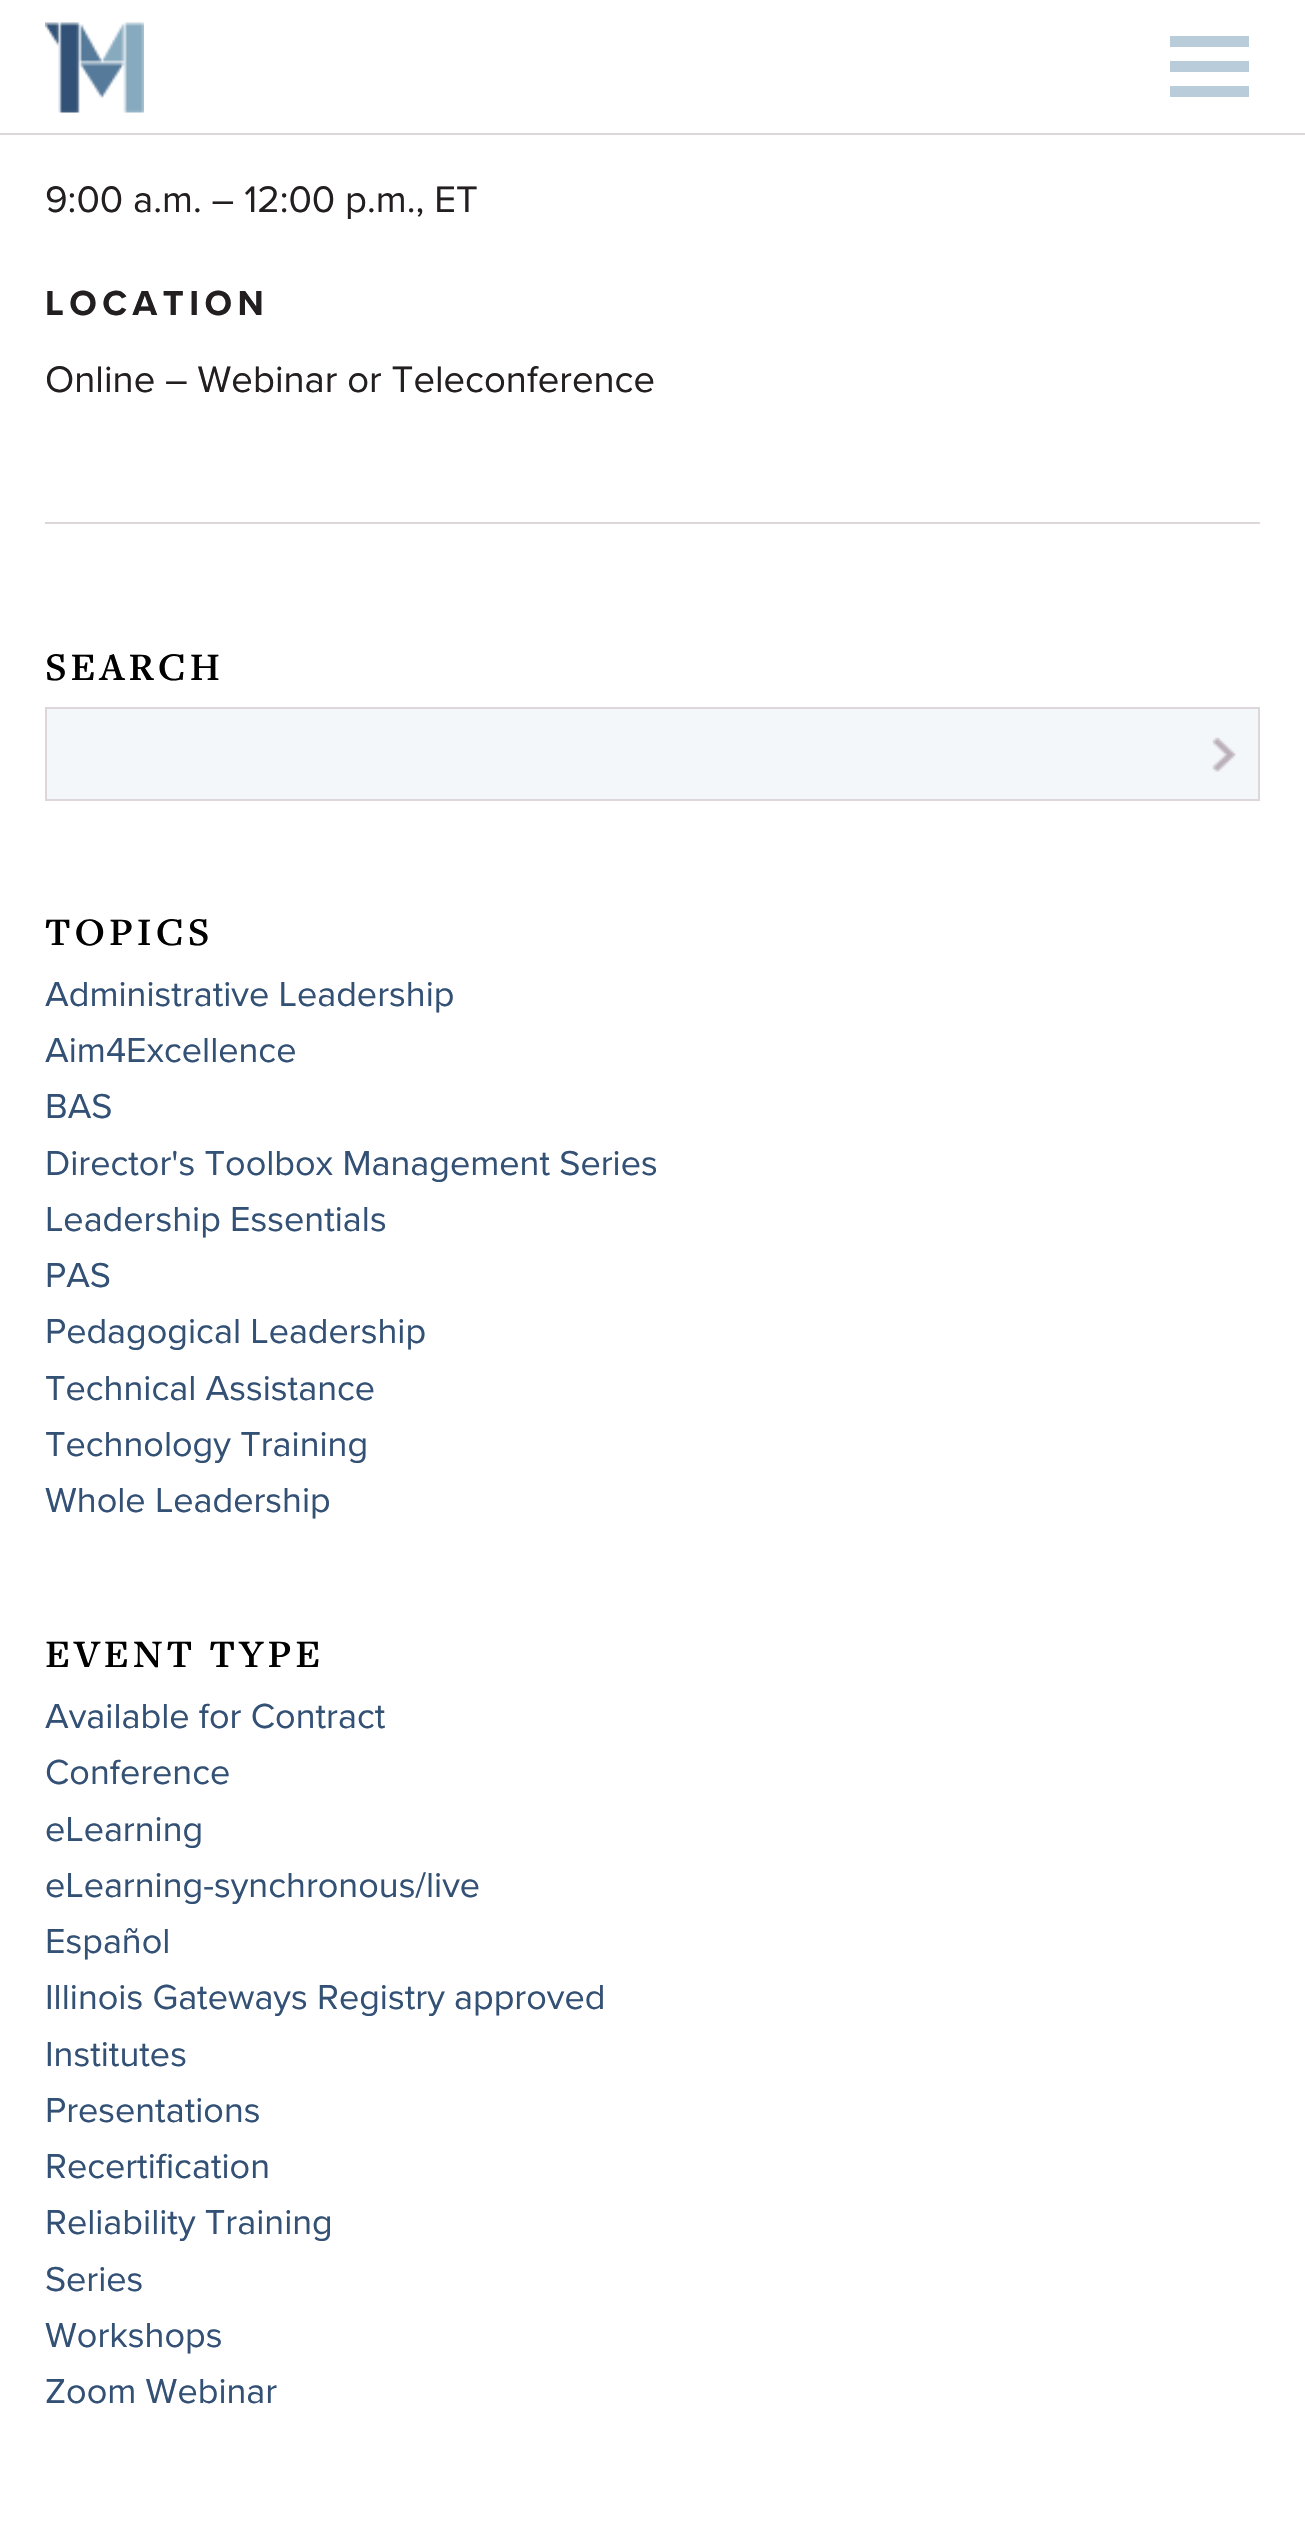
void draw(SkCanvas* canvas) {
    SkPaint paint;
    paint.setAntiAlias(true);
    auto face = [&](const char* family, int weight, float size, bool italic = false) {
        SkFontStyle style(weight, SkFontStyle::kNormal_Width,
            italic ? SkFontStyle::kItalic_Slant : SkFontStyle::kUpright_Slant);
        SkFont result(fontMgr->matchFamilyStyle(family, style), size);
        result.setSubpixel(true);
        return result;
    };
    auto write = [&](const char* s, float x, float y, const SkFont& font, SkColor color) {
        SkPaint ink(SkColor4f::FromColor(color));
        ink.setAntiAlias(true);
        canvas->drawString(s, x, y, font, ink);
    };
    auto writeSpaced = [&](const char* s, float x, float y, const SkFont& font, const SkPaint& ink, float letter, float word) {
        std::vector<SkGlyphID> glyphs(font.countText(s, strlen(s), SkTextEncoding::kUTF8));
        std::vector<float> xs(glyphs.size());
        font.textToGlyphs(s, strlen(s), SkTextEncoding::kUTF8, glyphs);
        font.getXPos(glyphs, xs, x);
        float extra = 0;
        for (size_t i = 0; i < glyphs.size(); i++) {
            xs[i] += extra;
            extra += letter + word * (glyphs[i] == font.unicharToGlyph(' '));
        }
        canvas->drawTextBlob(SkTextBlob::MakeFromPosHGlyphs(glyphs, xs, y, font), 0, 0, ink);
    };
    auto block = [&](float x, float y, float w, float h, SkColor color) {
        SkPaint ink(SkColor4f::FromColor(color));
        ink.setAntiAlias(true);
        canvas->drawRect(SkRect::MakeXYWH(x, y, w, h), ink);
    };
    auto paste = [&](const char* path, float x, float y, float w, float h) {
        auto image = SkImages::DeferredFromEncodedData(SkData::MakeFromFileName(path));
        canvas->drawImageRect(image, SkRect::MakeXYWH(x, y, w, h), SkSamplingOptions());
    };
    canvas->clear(SK_ColorWHITE);
    block(0, 133, 1305, 2, SkColorSetRGB(221, 215, 220));
    paste("pic1.png", 45, 22, 99, 91);
    block(1170, 36, 79, 11, SkColorSetRGB(184, 204, 217));
    block(1170, 61, 79, 11, SkColorSetRGB(184, 204, 217));
    block(1170, 86, 79, 11, SkColorSetRGB(184, 204, 217));
    auto kFont1 = face("Proxima Nova", 400, 38.25f);
    write("9:00 a.m. – 12:00 p.m., ET", 45, 212, kFont1, SkColorSetRGB(35, 31, 32));
    auto kFont2 = face("Proxima Nova", 700, 36);
    paint.setColor(SkColorSetRGB(35, 31, 32));
    writeSpaced("LOCATION", 45, 315, kFont2, paint, 5.5f, 0);
    write("Online – Webinar or Teleconference", 45, 392, kFont1, SkColorSetRGB(35, 31, 32));
    block(45, 522, 1215, 2, SkColorSetRGB(221, 215, 220));
    auto kFont3 = face("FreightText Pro", 600, 40.5f);
    paint.setColor(SK_ColorBLACK);
    writeSpaced("SEARCH", 45, 680, kFont3, paint, 4, 0);
    block(47, 709, 1211, 90, SkColorSetRGB(244, 247, 249));
    paste("pic2.png", 1212, 737, 24, 35);
    paint.setStyle(SkPaint::kStroke_Style);
    paint.setStrokeWidth(2);
    paint.setColor(SkColorSetRGB(221, 215, 220));
    canvas->drawRect(SkRect::MakeXYWH(46, 708, 1213, 92), paint);
    paint.setStyle(SkPaint::kFill_Style);
    paint.setColor(SK_ColorBLACK);
    writeSpaced("TOPICS", 45, 945, kFont3, paint, 4, 0);
    auto kFont4 = face("Proxima Nova", 400, 36);
    write("Administrative Leadership", 45, 1006, kFont4, SkColorSetRGB(51, 80, 117));
    write("Aim4Excellence", 45, 1062, kFont4, SkColorSetRGB(51, 80, 117));
    write("BAS", 45, 1118, kFont4, SkColorSetRGB(51, 80, 117));
    write("Director's Toolbox Management Series", 45, 1175, kFont4, SkColorSetRGB(51, 80, 117));
    write("Leadership Essentials", 45, 1231, kFont4, SkColorSetRGB(51, 80, 117));
    write("PAS", 45, 1287, kFont4, SkColorSetRGB(51, 80, 117));
    write("Pedagogical Leadership", 45, 1343, kFont4, SkColorSetRGB(51, 80, 117));
    write("Technical Assistance", 45, 1400, kFont4, SkColorSetRGB(51, 80, 117));
    write("Technology Training", 45, 1456, kFont4, SkColorSetRGB(51, 80, 117));
    write("Whole Leadership", 45, 1512, kFont4, SkColorSetRGB(51, 80, 117));
    writeSpaced("EVENT TYPE", 45, 1667, kFont3, paint, 4, 0);
    write("Available for Contract", 45, 1728, kFont4, SkColorSetRGB(51, 80, 117));
    write("Conference", 45, 1784, kFont4, SkColorSetRGB(51, 80, 117));
    write("eLearning", 45, 1841, kFont4, SkColorSetRGB(51, 80, 117));
    write("eLearning-synchronous/live", 45, 1897, kFont4, SkColorSetRGB(51, 80, 117));
    write("Español", 45, 1953, kFont4, SkColorSetRGB(51, 80, 117));
    write("Illinois Gateways Registry approved", 45, 2009, kFont4, SkColorSetRGB(51, 80, 117));
    write("Institutes", 45, 2066, kFont4, SkColorSetRGB(51, 80, 117));
    write("Presentations", 45, 2122, kFont4, SkColorSetRGB(51, 80, 117));
    write("Recertification", 45, 2178, kFont4, SkColorSetRGB(51, 80, 117));
    write("Reliability Training", 45, 2234, kFont4, SkColorSetRGB(51, 80, 117));
    write("Series", 45, 2291, kFont4, SkColorSetRGB(51, 80, 117));
    write("Workshops", 45, 2347, kFont4, SkColorSetRGB(51, 80, 117));
    write("Zoom Webinar", 45, 2403, kFont4, SkColorSetRGB(51, 80, 117));
}
